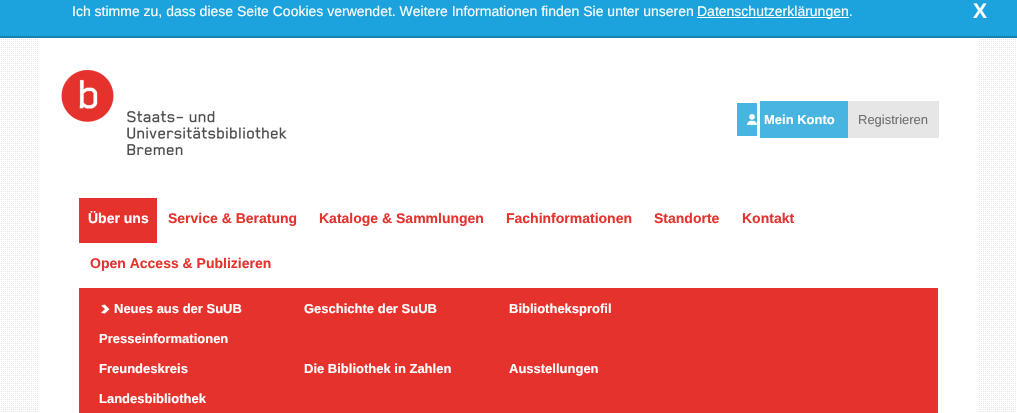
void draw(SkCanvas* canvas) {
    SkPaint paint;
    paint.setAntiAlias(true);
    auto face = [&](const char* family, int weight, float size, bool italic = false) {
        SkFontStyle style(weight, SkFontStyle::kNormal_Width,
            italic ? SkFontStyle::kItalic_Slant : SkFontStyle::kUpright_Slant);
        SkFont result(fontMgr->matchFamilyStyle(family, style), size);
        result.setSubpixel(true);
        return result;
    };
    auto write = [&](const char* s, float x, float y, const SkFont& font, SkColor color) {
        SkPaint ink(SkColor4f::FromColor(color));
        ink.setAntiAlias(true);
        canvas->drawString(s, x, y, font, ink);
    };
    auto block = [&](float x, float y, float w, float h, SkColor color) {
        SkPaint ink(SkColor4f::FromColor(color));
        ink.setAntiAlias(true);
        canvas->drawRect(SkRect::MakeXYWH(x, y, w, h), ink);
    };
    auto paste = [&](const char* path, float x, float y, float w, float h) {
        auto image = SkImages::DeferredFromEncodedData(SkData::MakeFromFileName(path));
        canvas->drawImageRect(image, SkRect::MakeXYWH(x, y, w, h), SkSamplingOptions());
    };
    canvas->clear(SK_ColorWHITE);
    paste("pic1.png", 1, 38, 1015, 374);
    block(0, 0, 1017, 36, SkColorSetRGB(28, 162, 220));
    block(0, 36, 1017, 2, SkColorSetRGB(22, 130, 176));
    auto kFont1 = face("Liberation Sans", 400, 14);
    write("Ich stimme zu, dass diese Seite Cookies verwendet. Weitere Informationen finden Sie unter unseren", 72, 16, kFont1, SK_ColorWHITE);
    block(697, 17, 152, 1, SK_ColorWHITE);
    write("Datenschutzerklärungen.", 697, 16, kFont1, SK_ColorWHITE);
    auto kFont2 = face("Liberation Sans", 700, 21);
    write("X", 973, 18, kFont2, SK_ColorWHITE);
    block(39, 39, 939, 373, SK_ColorWHITE);
    paste("pic2.png", 61, 70, 226, 85);
    block(737, 103, 20, 33, SkColorSetRGB(72, 181, 225));
    paste("pic3.png", 747, 114, 10, 11);
    block(760, 101, 88, 37, SkColorSetRGB(72, 181, 225));
    auto kFont3 = face("Liberation Sans", 700, 13);
    write("Mein Konto", 764, 124, kFont3, SK_ColorWHITE);
    block(848, 101, 91, 37, SkColorSetRGB(230, 230, 230));
    auto kFont4 = face("Liberation Sans", 400, 13);
    write("Registrieren", 858, 124, kFont4, SkColorSetRGB(110, 110, 110));
    block(79, 198, 78, 45, SkColorSetRGB(229, 50, 45));
    auto kFont5 = face("Liberation Sans", 700, 14);
    write("Über uns", 88, 223, kFont5, SK_ColorWHITE);
    write("Service & Beratung", 168, 223, kFont5, SkColorSetRGB(229, 50, 45));
    write("Kataloge & Sammlungen", 319, 223, kFont5, SkColorSetRGB(229, 50, 45));
    write("Fachinformationen", 506, 223, kFont5, SkColorSetRGB(229, 50, 45));
    write("Standorte", 654, 223, kFont5, SkColorSetRGB(229, 50, 45));
    write("Kontakt", 742, 223, kFont5, SkColorSetRGB(229, 50, 45));
    write("Open Access & Publizieren", 90, 268, kFont5, SkColorSetRGB(229, 50, 45));
    block(79, 288, 859, 125, SkColorSetRGB(229, 50, 45));
    paste("pic4.png", 101, 304, 9, 10);
    write("Neues aus der SuUB", 114, 313, kFont3, SK_ColorWHITE);
    write("Geschichte der SuUB", 304, 313, kFont3, SK_ColorWHITE);
    write("Bibliotheksprofil", 509, 313, kFont3, SK_ColorWHITE);
    write("Presseinformationen", 99, 343, kFont3, SK_ColorWHITE);
    write("Freundeskreis", 99, 373, kFont3, SK_ColorWHITE);
    write("Die Bibliothek in Zahlen", 304, 373, kFont3, SK_ColorWHITE);
    write("Ausstellungen", 509, 373, kFont3, SK_ColorWHITE);
    write("Landesbibliothek", 99, 403, kFont3, SK_ColorWHITE);
}
